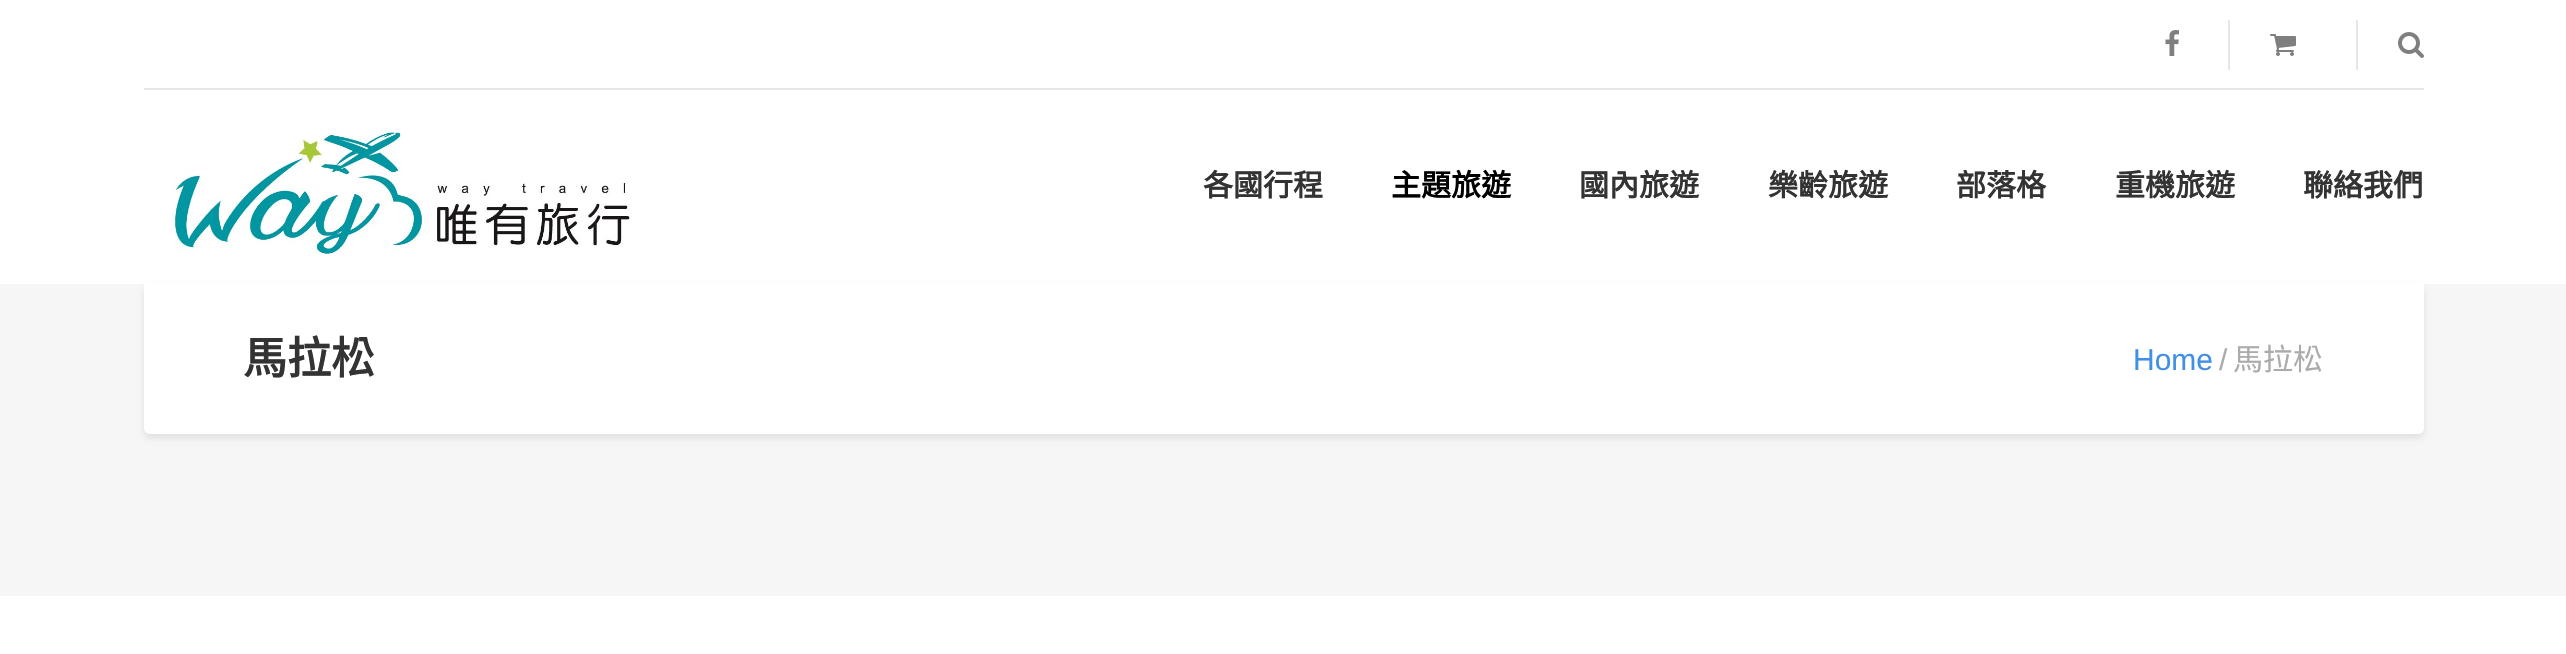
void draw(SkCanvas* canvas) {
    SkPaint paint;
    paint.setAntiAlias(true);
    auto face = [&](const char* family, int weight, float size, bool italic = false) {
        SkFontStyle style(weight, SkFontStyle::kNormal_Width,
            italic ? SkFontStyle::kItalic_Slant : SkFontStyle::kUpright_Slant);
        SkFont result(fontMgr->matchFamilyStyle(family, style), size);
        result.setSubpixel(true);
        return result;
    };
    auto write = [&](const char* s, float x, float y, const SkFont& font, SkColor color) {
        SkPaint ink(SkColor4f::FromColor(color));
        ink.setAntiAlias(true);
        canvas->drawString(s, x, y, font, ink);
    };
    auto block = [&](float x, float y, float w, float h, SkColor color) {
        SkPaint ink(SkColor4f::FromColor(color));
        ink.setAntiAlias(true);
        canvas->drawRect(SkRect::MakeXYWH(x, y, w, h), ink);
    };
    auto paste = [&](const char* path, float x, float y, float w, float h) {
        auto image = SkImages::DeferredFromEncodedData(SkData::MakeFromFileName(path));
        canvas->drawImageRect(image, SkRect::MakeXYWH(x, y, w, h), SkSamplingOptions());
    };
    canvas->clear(SkColorSetRGB(246, 246, 246));
    block(0, 0, 2566, 284, SK_ColorWHITE);
    paste("pic1.png", 2165, 30, 14, 26);
    block(2228, 20, 2, 50, SkColorSetRGB(230, 230, 230));
    paste("pic2.png", 2270, 34, 26, 22);
    block(2356, 20, 2, 50, SkColorSetRGB(230, 230, 230));
    paste("pic3.png", 2398, 32, 26, 26);
    block(144, 88, 2280, 2, SkColorSetRGB(230, 230, 230));
    paste("pic4.png", 170, 129, 460, 127);
    auto kFont1 = face("Noto Sans CJK TC", 700, 30);
    write("各國行程", 1203, 196, kFont1, SkColorSetRGB(51, 51, 51));
    write("主題旅遊", 1391, 196, kFont1, SK_ColorBLACK);
    write("國內旅遊", 1579, 196, kFont1, SkColorSetRGB(51, 51, 51));
    write("樂齡旅遊", 1768, 196, kFont1, SkColorSetRGB(51, 51, 51));
    write("部落格", 1956, 196, kFont1, SkColorSetRGB(51, 51, 51));
    write("重機旅遊", 2115, 196, kFont1, SkColorSetRGB(51, 51, 51));
    write("聯絡我們", 2303, 196, kFont1, SkColorSetRGB(51, 51, 51));
    paint.setColor(SkColorSetARGB(23, 0, 0, 0));
    paint.setMaskFilter(SkMaskFilter::MakeBlur(kNormal_SkBlurStyle, 3));
    canvas->drawRoundRect(SkRect::MakeXYWH(144, 288, 2280, 150), 6, 6, paint);
    paint.setMaskFilter(nullptr);
    paint.setColor(SK_ColorWHITE);
    canvas->drawPath(SkPathBuilder().moveTo(144, 284).lineTo(2424, 284).lineTo(2424, 428).cubicTo(2424, 431.5f, 2421.5f, 434, 2418, 434).lineTo(150, 434).cubicTo(146.5f, 434, 144, 431.5f, 144, 428).close().detach(), paint);
    auto kFont2 = face("Noto Sans CJK TC", 700, 44);
    write("馬拉松", 243, 374, kFont2, SkColorSetRGB(51, 51, 51));
    auto kFont3 = face("Liberation Sans", 400, 30);
    write("Home", 2133, 370, kFont3, SkColorSetRGB(64, 144, 229));
    write("/", 2219, 370, kFont3, SkColorSetRGB(171, 171, 171));
    auto kFont4 = face("Noto Sans CJK TC", 400, 30);
    write("馬拉松", 2233, 370, kFont4, SkColorSetRGB(171, 171, 171));
    block(0, 596, 2566, 58, SK_ColorWHITE);
}
